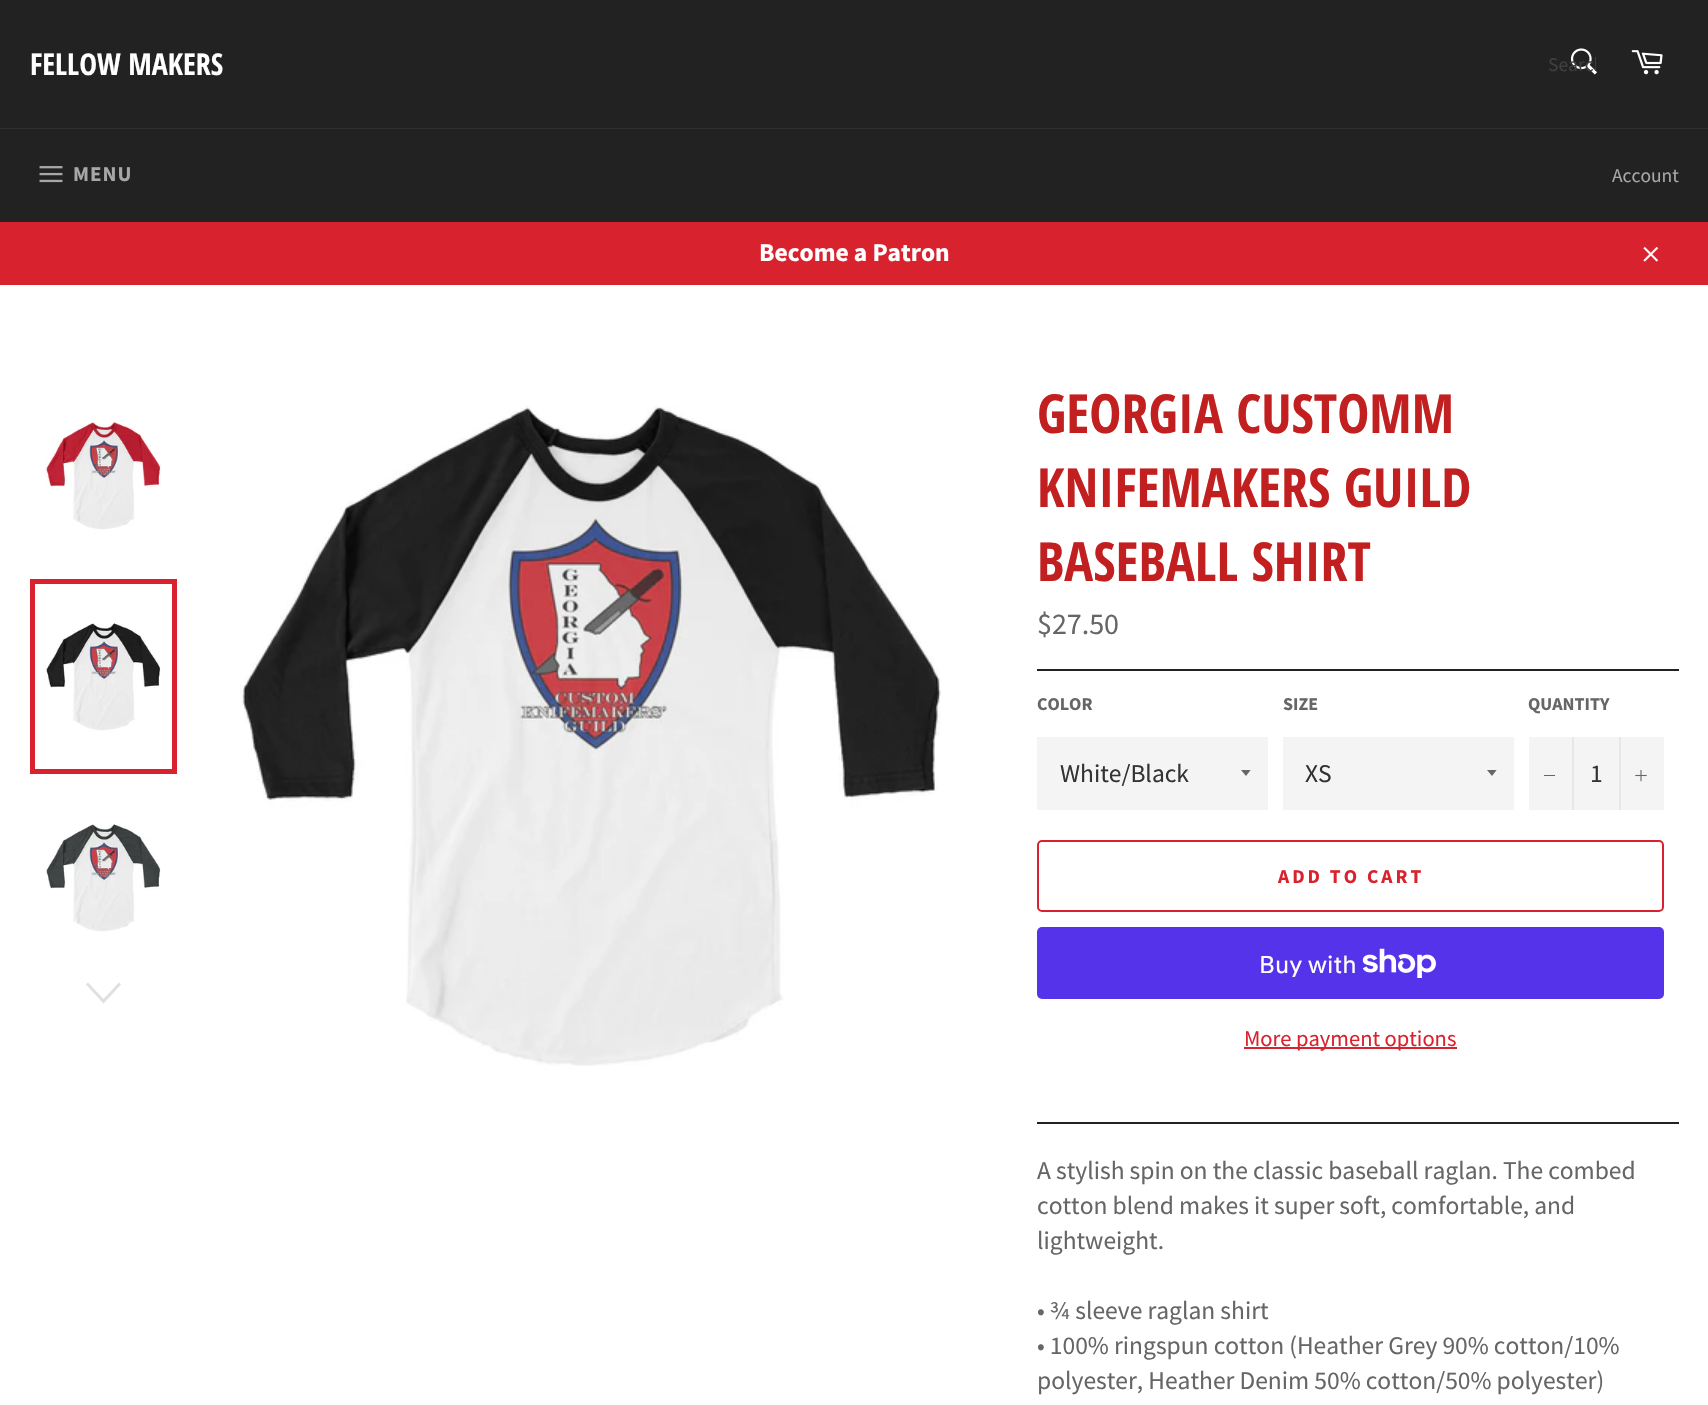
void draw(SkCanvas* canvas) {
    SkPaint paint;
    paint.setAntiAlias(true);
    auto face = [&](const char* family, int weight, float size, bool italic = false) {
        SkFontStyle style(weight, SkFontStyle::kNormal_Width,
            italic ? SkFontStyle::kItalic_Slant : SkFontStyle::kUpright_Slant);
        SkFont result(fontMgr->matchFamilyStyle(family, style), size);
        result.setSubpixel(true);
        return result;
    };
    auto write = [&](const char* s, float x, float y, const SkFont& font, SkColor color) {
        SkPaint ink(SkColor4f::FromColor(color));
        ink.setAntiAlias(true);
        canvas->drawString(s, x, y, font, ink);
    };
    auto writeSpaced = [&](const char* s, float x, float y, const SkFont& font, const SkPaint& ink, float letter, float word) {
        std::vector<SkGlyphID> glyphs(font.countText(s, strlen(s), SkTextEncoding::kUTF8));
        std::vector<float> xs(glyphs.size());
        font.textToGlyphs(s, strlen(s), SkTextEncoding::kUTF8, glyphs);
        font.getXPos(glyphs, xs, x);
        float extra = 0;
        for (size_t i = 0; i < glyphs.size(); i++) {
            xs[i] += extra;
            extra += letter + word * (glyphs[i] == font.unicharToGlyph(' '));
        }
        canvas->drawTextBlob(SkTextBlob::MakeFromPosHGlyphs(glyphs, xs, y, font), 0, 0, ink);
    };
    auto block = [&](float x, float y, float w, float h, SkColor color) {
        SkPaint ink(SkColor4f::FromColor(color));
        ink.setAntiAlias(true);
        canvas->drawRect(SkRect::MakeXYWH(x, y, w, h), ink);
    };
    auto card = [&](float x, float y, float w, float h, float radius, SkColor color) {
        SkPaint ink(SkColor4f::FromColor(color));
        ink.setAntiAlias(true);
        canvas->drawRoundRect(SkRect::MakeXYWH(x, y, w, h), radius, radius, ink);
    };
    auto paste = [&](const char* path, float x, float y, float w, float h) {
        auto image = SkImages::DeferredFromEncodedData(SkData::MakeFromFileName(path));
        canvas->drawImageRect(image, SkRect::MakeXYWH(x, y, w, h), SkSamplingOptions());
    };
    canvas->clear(SkColorSetRGB(34, 34, 34));
    auto kFont1 = face("Open Sans Condensed", 700, 30);
    write("FELLOW MAKERS", 30, 75, kFont1, SK_ColorWHITE);
    paste("pic1.png", 1570, 48, 27, 27);
    canvas->save();
    canvas->clipRect(SkRect::MakeXYWH(1548, 51, 48, 26));
    auto kFont2 = face("Source Sans Pro", 400, 19.5f);
    write("Search", 1548, 71, kFont2, SkColorSetRGB(63, 63, 63));
    canvas->restore();
    paste("pic2.png", 1631, 50, 32, 25);
    block(0, 128, 1708, 1, SkColorSetRGB(47, 47, 47));
    paste("pic3.png", 39, 166, 24, 17);
    auto kFont3 = face("Source Sans Pro", 700, 21);
    paint.setColor(SkColorSetRGB(167, 167, 167));
    writeSpaced("MENU", 73, 181, kFont3, paint, 1, 0);
    write("Account", 1612, 182, kFont2, SkColorSetRGB(167, 167, 167));
    block(0, 222, 1708, 63, SkColorSetRGB(216, 35, 47));
    auto kFont4 = face("Source Sans Pro", 700, 25.5f);
    write("Become a Patron", 759, 261, kFont4, SK_ColorWHITE);
    paste("pic4.png", 1643, 246, 16, 16);
    block(0, 285, 1708, 1120, SK_ColorWHITE);
    paste("pic5.png", 45, 417, 117, 113);
    paste("pic6.png", 45, 623, 116, 108);
    paint.setStyle(SkPaint::kStroke_Style);
    paint.setStrokeWidth(5);
    paint.setColor(SkColorSetRGB(216, 35, 47));
    canvas->drawRect(SkRect::MakeXYWH(32.5f, 581.5f, 142, 190), paint);
    paste("pic7.png", 45, 824, 116, 108);
    paint.setStyle(SkPaint::kFill_Style);
    paint.setColor(SkColorSetRGB(224, 224, 224));
    canvas->drawPath(SkPathBuilder().moveTo(119, 982.5f).lineTo(121, 984.5f).lineTo(103.5f, 1003.5f).lineTo(86, 984.5f).lineTo(88, 982.5f).lineTo(103.5f, 999).close().detach(), paint);
    paste("pic8.png", 240, 405, 701, 661);
    auto kFont5 = face("Open Sans Condensed", 700, 54);
    write("GEORGIA CUSTOMM", 1037, 433, kFont5, SkColorSetRGB(194, 32, 32));
    write("KNIFEMAKERS GUILD", 1037, 507, kFont5, SkColorSetRGB(194, 32, 32));
    write("BASEBALL SHIRT", 1037, 581, kFont5, SkColorSetRGB(194, 32, 32));
    auto kFont6 = face("Source Sans Pro", 400, 30);
    write("$27.50", 1037, 634, kFont6, SkColorSetRGB(102, 102, 102));
    block(1037, 669, 642, 2, SkColorSetRGB(33, 34, 35));
    auto kFont7 = face("Source Sans Pro", 700, 18);
    write("COLOR", 1037, 710, kFont7, SkColorSetRGB(102, 102, 102));
    block(1037, 737, 231, 73, SkColorSetRGB(244, 244, 244));
    canvas->save();
    canvas->clipRect(SkRect::MakeXYWH(1241, 770, 12, 7));
    paint.setColor(SkColorSetRGB(102, 102, 102));
    canvas->drawPath(SkPathBuilder().moveTo(1240.5f, 769.5f).lineTo(1246, 776).lineTo(1251, 769.5f).close().detach(), paint);
    canvas->restore();
    auto kFont8 = face("Source Sans Pro", 400, 25.5f);
    write("White/Black", 1060, 782, kFont8, SkColorSetRGB(51, 51, 51));
    write("SIZE", 1283, 710, kFont7, SkColorSetRGB(102, 102, 102));
    block(1283, 737, 231, 73, SkColorSetRGB(244, 244, 244));
    canvas->save();
    canvas->clipRect(SkRect::MakeXYWH(1487, 770, 12, 7));
    canvas->drawPath(SkPathBuilder().moveTo(1486.5f, 769.5f).lineTo(1492, 776).lineTo(1497, 769.5f).close().detach(), paint);
    canvas->restore();
    write("XS", 1305, 782, kFont8, SkColorSetRGB(51, 51, 51));
    write("QUANTITY", 1528, 710, kFont7, SkColorSetRGB(102, 102, 102));
    block(1529, 737, 135, 73, SkColorSetRGB(244, 244, 244));
    block(1572, 737, 2, 73, SkColorSetRGB(231, 231, 231));
    block(1544, 775, 11, 1, SkColorSetRGB(102, 102, 102));
    write("1", 1590, 782, kFont8, SkColorSetRGB(51, 51, 51));
    block(1619, 737, 2, 73, SkColorSetRGB(231, 231, 231));
    paste("pic9.png", 1635, 770, 12, 12);
    paint.setStyle(SkPaint::kStroke_Style);
    paint.setStrokeWidth(2);
    paint.setColor(SkColorSetRGB(216, 35, 47));
    canvas->drawRoundRect(SkRect::MakeXYWH(1038, 841, 625, 70), 4, 4, paint);
    auto kFont9 = face("Source Sans Pro", 700, 19.5f);
    paint.setStyle(SkPaint::kFill_Style);
    writeSpaced("ADD TO CART", 1278, 883, kFont9, paint, 3, 0);
    card(1037, 927, 627, 72, 5, SkColorSetRGB(84, 51, 235));
    auto kFont10 = face("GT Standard", 400, 24);
    write("Buy with", 1259, 973, kFont10, SK_ColorWHITE);
    paste("pic10.png", 1362, 948, 74, 30);
    block(1244, 1047, 213, 2, SkColorSetRGB(216, 35, 47));
    auto kFont11 = face("Source Sans Pro", 400, 22.5f);
    write("More payment options", 1244, 1046, kFont11, SkColorSetRGB(216, 35, 47));
    block(1037, 1122, 642, 2, SkColorSetRGB(33, 34, 35));
    write("A stylish spin on the classic baseball raglan. The combed", 1037, 1179, kFont8, SkColorSetRGB(102, 102, 102));
    write("cotton blend makes it super soft, comfortable, and", 1037, 1214, kFont8, SkColorSetRGB(102, 102, 102));
    write("lightweight.", 1037, 1249, kFont8, SkColorSetRGB(102, 102, 102));
    write("• ¾ sleeve raglan shirt", 1037, 1319, kFont8, SkColorSetRGB(102, 102, 102));
    write("• 100% ringspun cotton (Heather Grey 90% cotton/10%", 1037, 1354, kFont8, SkColorSetRGB(102, 102, 102));
    write("polyester, Heather Denim 50% cotton/50% polyester)", 1037, 1389, kFont8, SkColorSetRGB(102, 102, 102));
}
